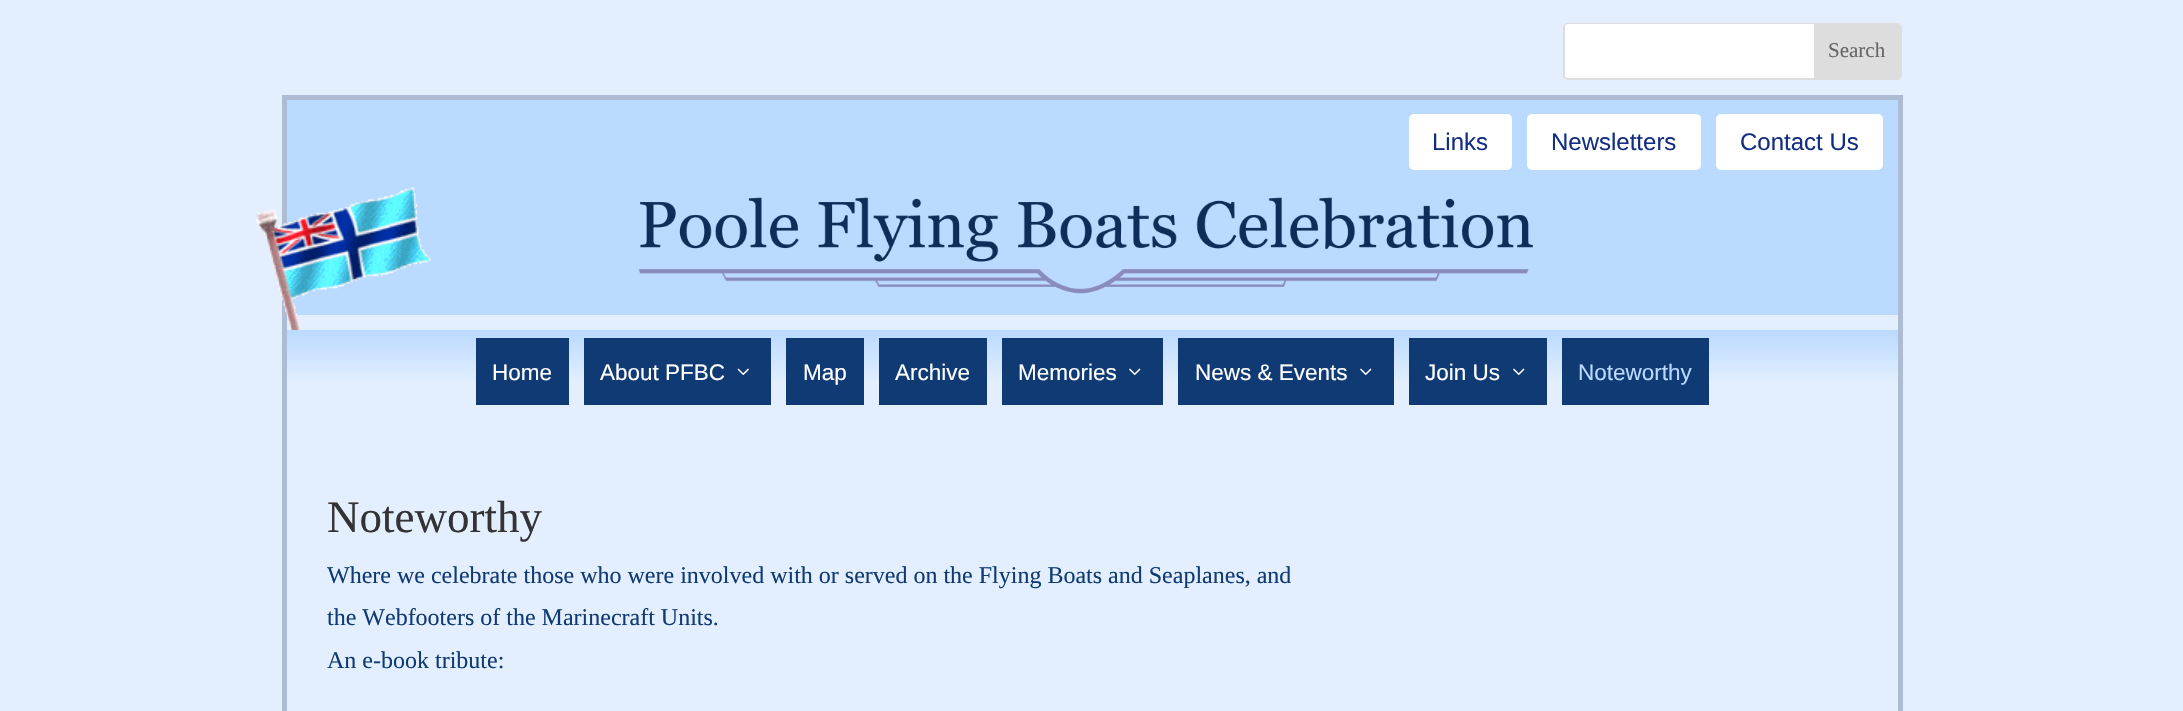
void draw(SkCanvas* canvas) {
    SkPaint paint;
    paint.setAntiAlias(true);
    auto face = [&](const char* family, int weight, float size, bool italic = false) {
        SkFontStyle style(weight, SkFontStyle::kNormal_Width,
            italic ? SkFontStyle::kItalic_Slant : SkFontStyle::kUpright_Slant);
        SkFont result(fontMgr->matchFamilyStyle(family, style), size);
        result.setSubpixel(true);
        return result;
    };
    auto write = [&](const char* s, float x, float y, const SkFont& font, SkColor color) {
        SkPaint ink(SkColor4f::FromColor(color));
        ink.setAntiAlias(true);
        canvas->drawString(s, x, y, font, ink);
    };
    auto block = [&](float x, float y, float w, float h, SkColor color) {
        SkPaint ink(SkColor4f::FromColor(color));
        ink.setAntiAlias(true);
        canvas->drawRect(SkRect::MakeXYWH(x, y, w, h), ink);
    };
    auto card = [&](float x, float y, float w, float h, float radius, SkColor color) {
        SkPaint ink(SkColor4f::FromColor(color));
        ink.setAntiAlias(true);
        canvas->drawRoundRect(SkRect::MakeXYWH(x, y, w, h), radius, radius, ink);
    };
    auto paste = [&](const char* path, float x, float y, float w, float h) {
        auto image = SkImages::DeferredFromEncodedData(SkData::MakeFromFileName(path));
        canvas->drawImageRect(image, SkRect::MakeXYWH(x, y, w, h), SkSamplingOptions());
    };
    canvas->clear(SkColorSetRGB(227, 239, 255));
    paint.setStyle(SkPaint::kStroke_Style);
    paint.setStrokeWidth(2);
    paint.setColor(SkColorSetRGB(221, 221, 221));
    canvas->drawRoundRect(SkRect::MakeXYWH(1564, 24, 337, 55), 4, 4, paint);
    card(1565, 24, 336, 54, 3, SK_ColorWHITE);
    paint.setStyle(SkPaint::kFill_Style);
    canvas->drawPath(SkPathBuilder().moveTo(1814, 24).lineTo(1898, 24).cubicTo(1899.5f, 24, 1901, 25.5f, 1901, 27).lineTo(1901, 75).cubicTo(1901, 76.5f, 1899.5f, 78, 1898, 78).lineTo(1814, 78).close().detach(), paint);
    auto kFont1 = face("Liberation Serif", 400, 21);
    write("Search", 1828, 57, kFont1, SkColorSetRGB(102, 102, 102));
    block(287, 100, 1611, 215, SkColorSetRGB(186, 218, 255));
    block(282, 95, 1620, 5, SkColorSetRGB(173, 188, 210));
    block(1898, 95, 5, 358, SkColorSetRGB(173, 188, 210));
    block(282, 95, 5, 220, SkColorSetRGB(173, 188, 210));
    card(1409, 114, 103, 56, 5, SK_ColorWHITE);
    auto kFont2 = face("Liberation Sans", 400, 24);
    write("Links", 1432, 150, kFont2, SkColorSetRGB(18, 46, 130));
    card(1527, 114, 174, 56, 5, SK_ColorWHITE);
    write("Newsletters", 1551, 150, kFont2, SkColorSetRGB(18, 46, 130));
    card(1716, 114, 167, 56, 5, SK_ColorWHITE);
    write("Contact Us", 1740, 150, kFont2, SkColorSetRGB(18, 46, 130));
    paste("pic1.png", 256, 187, 175, 143);
    paste("pic2.png", 638, 197, 895, 97);
    block(282, 315, 5, 138, SkColorSetRGB(173, 188, 210));
    {
        const SkColor colors[] = {SkColorSetRGB(186, 218, 255), SkColorSetRGB(227, 239, 255)};
        const float stops[] = {0, 0.65f};
        const SkPoint ends[] = {{1092, 330}, {1092, 413}};
        paint.setShader(SkGradientShader::MakeLinear(ends, colors, stops, 2, SkTileMode::kClamp));
        paint.setAlpha(255);
    }
    canvas->drawRect(SkRect::MakeXYWH(287, 330, 1611, 51), paint);
    block(476, 338, 93, 67, SkColorSetRGB(16, 58, 116));
    auto kFont3 = face("Liberation Sans", 400, 22.5f);
    write("Home", 492, 380, kFont3, SK_ColorWHITE);
    block(584, 338, 187, 67, SkColorSetRGB(16, 58, 116));
    write("About PFBC", 600, 380, kFont3, SK_ColorWHITE);
    paste("pic3.png", 737, 368, 12, 7);
    block(786, 338, 78, 67, SkColorSetRGB(16, 58, 116));
    write("Map", 803, 380, kFont3, SK_ColorWHITE);
    block(879, 338, 108, 67, SkColorSetRGB(16, 58, 116));
    write("Archive", 895, 380, kFont3, SK_ColorWHITE);
    block(1002, 338, 161, 67, SkColorSetRGB(16, 58, 116));
    write("Memories", 1018, 380, kFont3, SK_ColorWHITE);
    paste("pic4.png", 1129, 368, 12, 7);
    block(1178, 338, 216, 67, SkColorSetRGB(16, 58, 116));
    write("News & Events", 1195, 380, kFont3, SK_ColorWHITE);
    paste("pic4.png", 1360, 368, 12, 7);
    block(1409, 338, 138, 67, SkColorSetRGB(16, 58, 116));
    write("Join Us", 1425, 380, kFont3, SK_ColorWHITE);
    paste("pic4.png", 1513, 368, 12, 7);
    block(1562, 338, 147, 67, SkColorSetRGB(16, 58, 116));
    write("Noteworthy", 1578, 380, kFont3, SkColorSetRGB(186, 218, 255));
    block(1898, 453, 5, 258, SkColorSetRGB(173, 188, 210));
    block(282, 453, 5, 258, SkColorSetRGB(173, 188, 210));
    auto kFont4 = face("Liberation Serif", 400, 45);
    write("Noteworthy", 327, 532, kFont4, SkColorSetRGB(51, 51, 51));
    auto kFont5 = face("Liberation Serif", 400, 24);
    write("Where we celebrate those who were involved with or served on the Flying Boats and Seaplanes, and", 327, 583, kFont5, SkColorSetRGB(16, 58, 116));
    write("the Webfooters of the Marinecraft Units.", 327, 625, kFont5, SkColorSetRGB(16, 58, 116));
    write("An e-book tribute:", 327, 668, kFont5, SkColorSetRGB(16, 58, 116));
}
